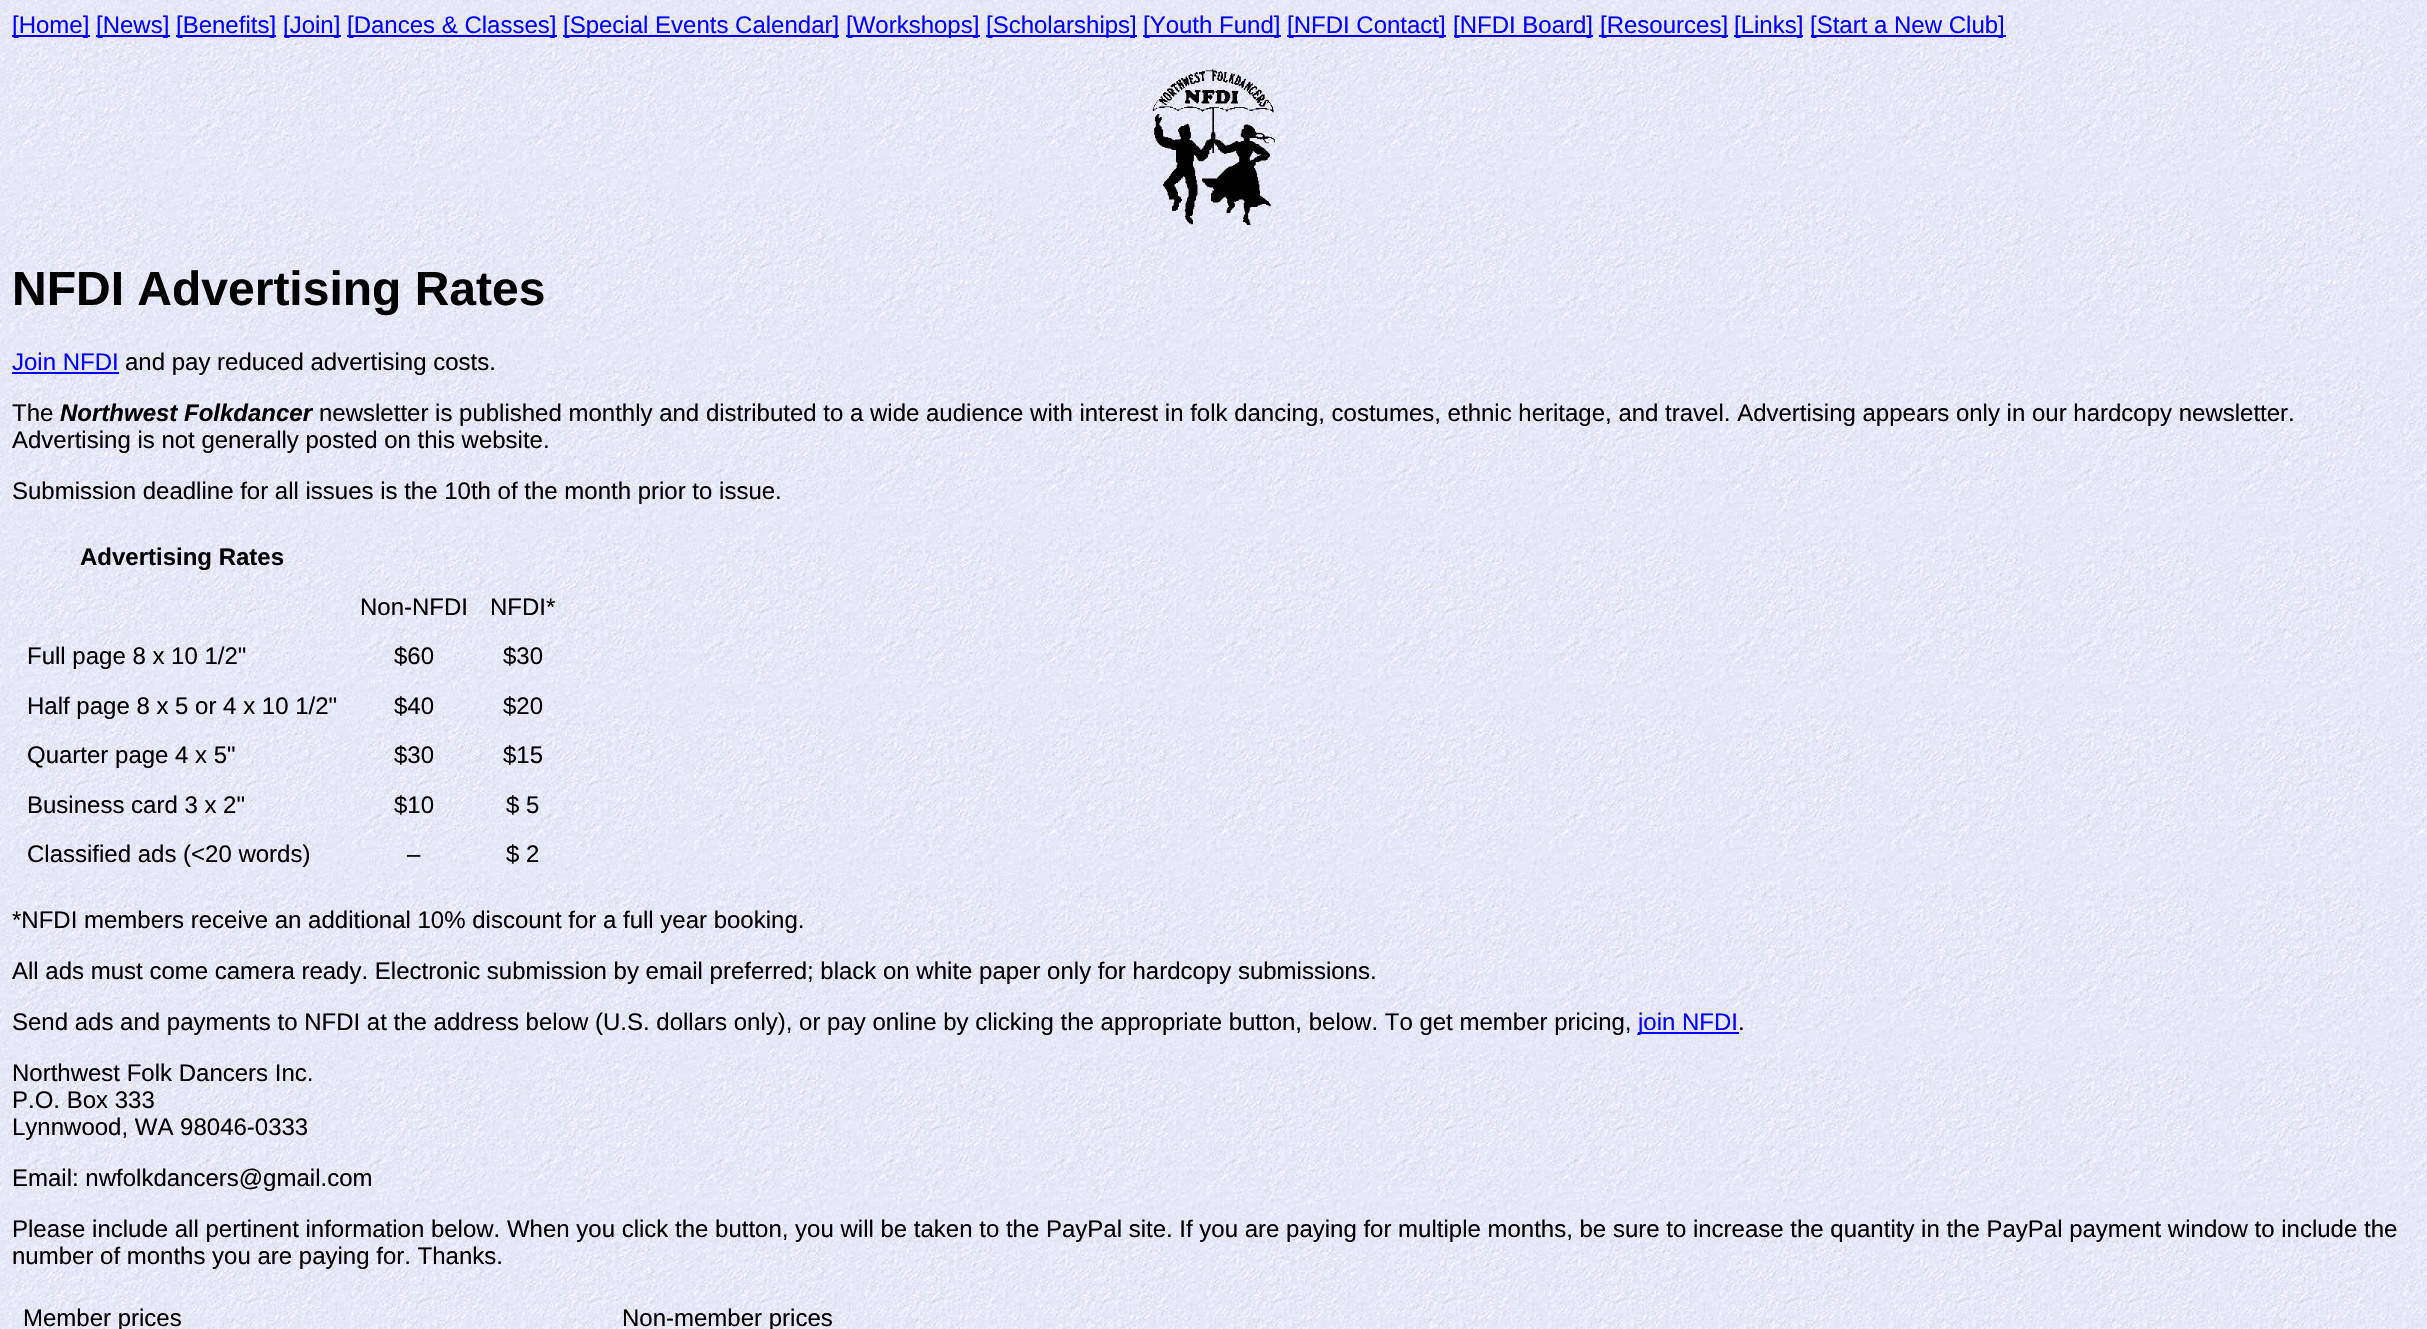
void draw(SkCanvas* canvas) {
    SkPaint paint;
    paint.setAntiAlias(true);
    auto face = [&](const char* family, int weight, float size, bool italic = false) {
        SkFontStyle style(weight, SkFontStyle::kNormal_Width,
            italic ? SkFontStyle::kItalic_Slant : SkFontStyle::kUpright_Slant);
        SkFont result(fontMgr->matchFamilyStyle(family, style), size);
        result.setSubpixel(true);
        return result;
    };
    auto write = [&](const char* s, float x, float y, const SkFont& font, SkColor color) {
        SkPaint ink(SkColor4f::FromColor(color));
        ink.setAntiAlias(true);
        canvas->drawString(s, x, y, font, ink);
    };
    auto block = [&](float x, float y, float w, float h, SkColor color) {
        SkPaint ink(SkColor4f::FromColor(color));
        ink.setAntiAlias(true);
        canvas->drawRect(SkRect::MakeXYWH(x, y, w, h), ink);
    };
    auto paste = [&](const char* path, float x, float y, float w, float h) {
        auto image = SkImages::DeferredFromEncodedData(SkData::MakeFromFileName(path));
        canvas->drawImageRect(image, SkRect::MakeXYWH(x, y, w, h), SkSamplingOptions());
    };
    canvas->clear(SK_ColorWHITE);
    paste("pic1.png", 0, 0, 2427, 1329);
    block(12, 35, 78, 2, SkColorSetRGB(0, 0, 255));
    auto kFont1 = face("Liberation Sans", 400, 24);
    write("[Home]", 12, 33, kFont1, SkColorSetRGB(0, 0, 255));
    block(96, 35, 74, 2, SkColorSetRGB(0, 0, 255));
    write("[News]", 96, 33, kFont1, SkColorSetRGB(0, 0, 255));
    block(176, 35, 100, 2, SkColorSetRGB(0, 0, 255));
    write("[Benefits]", 176, 33, kFont1, SkColorSetRGB(0, 0, 255));
    block(284, 35, 57, 2, SkColorSetRGB(0, 0, 255));
    write("[Join]", 283, 33, kFont1, SkColorSetRGB(0, 0, 255));
    block(347, 35, 210, 2, SkColorSetRGB(0, 0, 255));
    write("[Dances & Classes]", 347, 33, kFont1, SkColorSetRGB(0, 0, 255));
    block(563, 35, 276, 2, SkColorSetRGB(0, 0, 255));
    write("[Special Events Calendar]", 563, 33, kFont1, SkColorSetRGB(0, 0, 255));
    block(846, 35, 134, 2, SkColorSetRGB(0, 0, 255));
    write("[Workshops]", 846, 33, kFont1, SkColorSetRGB(0, 0, 255));
    block(986, 35, 151, 2, SkColorSetRGB(0, 0, 255));
    write("[Scholarships]", 986, 33, kFont1, SkColorSetRGB(0, 0, 255));
    block(1143, 35, 138, 2, SkColorSetRGB(0, 0, 255));
    write("[Youth Fund]", 1143, 33, kFont1, SkColorSetRGB(0, 0, 255));
    block(1287, 35, 159, 2, SkColorSetRGB(0, 0, 255));
    write("[NFDI Contact]", 1287, 33, kFont1, SkColorSetRGB(0, 0, 255));
    block(1454, 35, 139, 2, SkColorSetRGB(0, 0, 255));
    write("[NFDI Board]", 1453, 33, kFont1, SkColorSetRGB(0, 0, 255));
    block(1599, 35, 129, 2, SkColorSetRGB(0, 0, 255));
    write("[Resources]", 1600, 33, kFont1, SkColorSetRGB(0, 0, 255));
    block(1734, 35, 69, 2, SkColorSetRGB(0, 0, 255));
    write("[Links]", 1734, 33, kFont1, SkColorSetRGB(0, 0, 255));
    block(1811, 35, 195, 2, SkColorSetRGB(0, 0, 255));
    write("[Start a New Club]", 1810, 33, kFont1, SkColorSetRGB(0, 0, 255));
    paste("pic2.png", 1152, 69, 123, 156);
    auto kFont2 = face("Liberation Sans", 700, 48);
    write("NFDI Advertising Rates", 12, 305, kFont2, SK_ColorBLACK);
    write("Join NFDI", 12, 370, kFont1, SkColorSetRGB(0, 0, 255));
    block(12, 372, 107, 2, SkColorSetRGB(0, 0, 255));
    write("and pay reduced advertising costs.", 125, 370, kFont1, SK_ColorBLACK);
    write("The", 12, 421, kFont1, SK_ColorBLACK);
    auto kFont3 = face("Liberation Sans", 700, 24, true);
    write("Northwest Folkdancer", 60, 421, kFont3, SK_ColorBLACK);
    write("newsletter is published monthly and distributed to a wide audience with interest in folk dancing, costumes, ethnic heritage, and travel. Advertising appears only in our hardcopy newsletter.", 319, 421, kFont1, SK_ColorBLACK);
    write("Advertising is not generally posted on this website.", 12, 448, kFont1, SK_ColorBLACK);
    write("Submission deadline for all issues is the 10th of the month prior to issue.", 12, 499, kFont1, SK_ColorBLACK);
    auto kFont4 = face("Liberation Sans", 700, 24);
    write("Advertising Rates", 80, 565, kFont4, SK_ColorBLACK);
    write("Non-NFDI", 360, 615, kFont1, SK_ColorBLACK);
    write("NFDI*", 490, 615, kFont1, SK_ColorBLACK);
    write("Full page 8 x 10 1/2\"", 27, 664, kFont1, SK_ColorBLACK);
    write("$60", 394, 664, kFont1, SK_ColorBLACK);
    write("$30", 503, 664, kFont1, SK_ColorBLACK);
    write("Half page 8 x 5 or 4 x 10 1/2\"", 27, 714, kFont1, SK_ColorBLACK);
    write("$40", 394, 714, kFont1, SK_ColorBLACK);
    write("$20", 503, 714, kFont1, SK_ColorBLACK);
    write("Quarter page 4 x 5\"", 27, 763, kFont1, SK_ColorBLACK);
    write("$30", 394, 763, kFont1, SK_ColorBLACK);
    write("$15", 503, 763, kFont1, SK_ColorBLACK);
    write("Business card 3 x 2\"", 27, 813, kFont1, SK_ColorBLACK);
    write("$10", 394, 813, kFont1, SK_ColorBLACK);
    write("$ 5", 506, 813, kFont1, SK_ColorBLACK);
    write("Classified ads (<20 words)", 27, 862, kFont1, SK_ColorBLACK);
    write("–", 407, 862, kFont1, SK_ColorBLACK);
    write("$ 2", 506, 862, kFont1, SK_ColorBLACK);
    write("*NFDI members receive an additional 10% discount for a full year booking.", 12, 928, kFont1, SK_ColorBLACK);
    write("All ads must come camera ready. Electronic submission by email preferred; black on white paper only for hardcopy submissions.", 12, 979, kFont1, SK_ColorBLACK);
    write("Send ads and payments to NFDI at the address below (U.S. dollars only), or pay online by clicking the appropriate button, below. To get member pricing,", 12, 1030, kFont1, SK_ColorBLACK);
    block(1638, 1032, 101, 2, SkColorSetRGB(0, 0, 255));
    write("join NFDI", 1638, 1030, kFont1, SkColorSetRGB(0, 0, 255));
    write(".", 1738, 1030, kFont1, SK_ColorBLACK);
    write("Northwest Folk Dancers Inc.", 12, 1081, kFont1, SK_ColorBLACK);
    write("P.O. Box 333", 12, 1108, kFont1, SK_ColorBLACK);
    write("Lynnwood, WA 98046-0333", 12, 1135, kFont1, SK_ColorBLACK);
    write("Email: nwfolkdancers@gmail.com", 12, 1186, kFont1, SK_ColorBLACK);
    write("Please include all pertinent information below. When you click the button, you will be taken to the PayPal site. If you are paying for multiple months, be sure to increase the quantity in the PayPal payment window to include the", 12, 1237, kFont1, SK_ColorBLACK);
    write("number of months you are paying for. Thanks.", 12, 1264, kFont1, SK_ColorBLACK);
    write("Member prices", 23, 1326, kFont1, SK_ColorBLACK);
    write("Non-member prices", 622, 1326, kFont1, SK_ColorBLACK);
}
